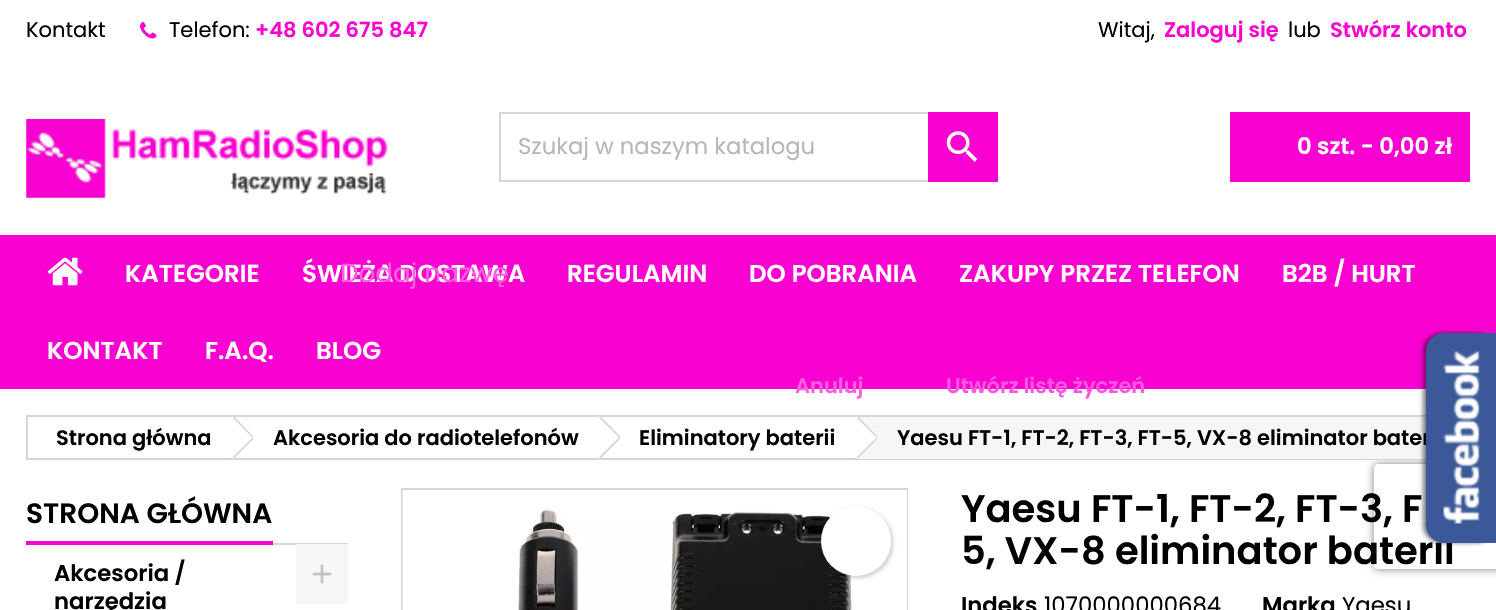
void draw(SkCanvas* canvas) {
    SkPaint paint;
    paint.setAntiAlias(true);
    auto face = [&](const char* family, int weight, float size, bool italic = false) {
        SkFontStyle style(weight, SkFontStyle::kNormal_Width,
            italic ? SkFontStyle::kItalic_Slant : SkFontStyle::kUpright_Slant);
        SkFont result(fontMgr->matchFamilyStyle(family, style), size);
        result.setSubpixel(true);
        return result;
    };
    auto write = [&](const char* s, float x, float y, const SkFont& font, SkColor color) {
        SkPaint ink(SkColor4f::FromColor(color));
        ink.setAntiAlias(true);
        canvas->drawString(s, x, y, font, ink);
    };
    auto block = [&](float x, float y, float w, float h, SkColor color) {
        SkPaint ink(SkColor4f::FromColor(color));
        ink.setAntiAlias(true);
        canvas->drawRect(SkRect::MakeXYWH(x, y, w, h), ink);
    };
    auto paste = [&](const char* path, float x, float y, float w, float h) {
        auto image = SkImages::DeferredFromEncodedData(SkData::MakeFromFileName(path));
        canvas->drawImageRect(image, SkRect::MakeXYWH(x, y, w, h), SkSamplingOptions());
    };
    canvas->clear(SK_ColorWHITE);
    auto kFont1 = face("Poppins", 400, 21);
    write("Kontakt", 26, 37, kFont1, SK_ColorBLACK);
    paste("pic1.png", 140, 22, 17, 17);
    write("Telefon:", 169, 37, kFont1, SK_ColorBLACK);
    auto kFont2 = face("Poppins", 600, 21);
    write("+48 602 675 847", 255, 37, kFont2, SkColorSetRGB(249, 1, 209));
    write("Witaj,", 1098, 37, kFont1, SK_ColorBLACK);
    write("Zaloguj się", 1164, 37, kFont2, SkColorSetRGB(249, 1, 209));
    write("lub", 1288, 37, kFont1, SK_ColorBLACK);
    write("Stwórz konto", 1330, 37, kFont2, SkColorSetRGB(249, 1, 209));
    paste("pic2.png", 26, 119, 362, 79);
    paint.setStyle(SkPaint::kStroke_Style);
    paint.setStrokeWidth(2);
    paint.setColor(SkColorSetRGB(214, 212, 212));
    canvas->drawRect(SkRect::MakeXYWH(500, 113, 497, 68), paint);
    auto kFont3 = face("Poppins", 400, 22.75f);
    write("Szukaj w naszym katalogu", 518, 154, kFont3, SkColorSetRGB(183, 183, 183));
    block(928, 112, 70, 70, SkColorSetRGB(249, 1, 209));
    paste("pic3.png", 946, 131, 32, 31);
    block(1230, 112, 240, 70, SkColorSetRGB(249, 1, 209));
    auto kFont4 = face("Poppins", 600, 22.75f);
    write("0 szt. - 0,00 zł", 1297, 154, kFont4, SK_ColorWHITE);
    block(0, 235, 1496, 154, SkColorSetRGB(249, 1, 209));
    paste("pic4.png", 47, 257, 36, 29);
    auto kFont5 = face("Poppins", 600, 24.5f);
    write("KATEGORIE", 125, 282, kFont5, SK_ColorWHITE);
    write("ŚWIEŻA DOSTAWA", 302, 282, kFont5, SK_ColorWHITE);
    write("REGULAMIN", 567, 282, kFont5, SK_ColorWHITE);
    write("DO POBRANIA", 749, 282, kFont5, SK_ColorWHITE);
    write("ZAKUPY PRZEZ TELEFON", 959, 282, kFont5, SK_ColorWHITE);
    write("B2B / HURT", 1282, 282, kFont5, SK_ColorWHITE);
    write("KONTAKT", 47, 359, kFont5, SK_ColorWHITE);
    write("F.A.Q.", 205, 359, kFont5, SK_ColorWHITE);
    write("BLOG", 316, 359, kFont5, SK_ColorWHITE);
    auto kFont6 = face("Poppins", 400, 26.25f);
    write("Dodaj nazwę", 340, 282, kFont6, SkColorSetRGB(251, 95, 226));
    write("Anuluj", 795, 393, kFont2, SkColorSetRGB(251, 95, 226));
    write("Utwórz listę życzeń", 946, 393, kFont2, SkColorSetRGB(251, 86, 224));
    canvas->save();
    canvas->clipPath(SkPathBuilder(SkPathFillType::kEvenOdd).moveTo(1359, 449).lineTo(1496, 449).lineTo(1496, 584).lineTo(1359, 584).close().moveTo(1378, 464).lineTo(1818, 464).cubicTo(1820, 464, 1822, 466, 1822, 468).lineTo(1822, 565).cubicTo(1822, 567, 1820, 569, 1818, 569).lineTo(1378, 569).cubicTo(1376, 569, 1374, 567, 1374, 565).lineTo(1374, 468).cubicTo(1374, 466, 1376, 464, 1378, 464).close().detach(), true);
    paint.setStyle(SkPaint::kFill_Style);
    paint.setColor(SkColorSetRGB(128, 128, 128));
    paint.setMaskFilter(SkMaskFilter::MakeBlur(kNormal_SkBlurStyle, 4.5f));
    canvas->drawRoundRect(SkRect::MakeXYWH(1374, 464, 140, 105), 4, 4, paint);
    paint.setMaskFilter(nullptr);
    canvas->restore();
    paint.setStyle(SkPaint::kStroke_Style);
    paint.setColor(SkColorSetRGB(214, 212, 212));
    canvas->drawRect(SkRect::MakeXYWH(27, 416, 1437, 43), paint);
    write("Strona główna", 56, 445, kFont2, SK_ColorBLACK);
    paint.setStyle(SkPaint::kFill_Style);
    paint.setColor(SK_ColorWHITE);
    canvas->drawPath(SkPathBuilder().moveTo(235, 418).lineTo(252, 435).cubicTo(254, 436, 254, 439, 252, 440).lineTo(235, 457).cubicTo(234, 459, 231, 459, 230, 457).lineTo(213, 440).cubicTo(211, 439, 211, 436, 213, 435).lineTo(230, 418).cubicTo(231, 416, 234, 416, 235, 418).close().detach(), paint);
    paint.setColor(SkColorSetRGB(214, 212, 212));
    canvas->drawPath(SkPathBuilder().moveTo(234, 416.5f).lineTo(253.5f, 436.5f).lineTo(252.5f, 437.5f).lineTo(232.5f, 417.5f).close().detach(), paint);
    canvas->drawPath(SkPathBuilder().moveTo(252.5f, 437.5f).lineTo(253.5f, 438.5f).lineTo(234, 458.5f).lineTo(232.5f, 457.5f).close().detach(), paint);
    write("Akcesoria do radiotelefonów", 273, 445, kFont2, SK_ColorBLACK);
    paint.setColor(SK_ColorWHITE);
    canvas->drawPath(SkPathBuilder().moveTo(602, 418).lineTo(619, 435).cubicTo(620, 436, 620, 439, 619, 440).lineTo(602, 457).cubicTo(600, 459, 598, 459, 597, 457).lineTo(579, 440).cubicTo(578, 439, 578, 436, 579, 435).lineTo(597, 418).cubicTo(598, 416, 600, 416, 602, 418).close().detach(), paint);
    paint.setColor(SkColorSetRGB(214, 212, 212));
    canvas->drawPath(SkPathBuilder().moveTo(600.5f, 416.5f).lineTo(620.5f, 436.5f).lineTo(619, 437.5f).lineTo(599, 417.5f).close().detach(), paint);
    canvas->drawPath(SkPathBuilder().moveTo(619, 437.5f).lineTo(620.5f, 438.5f).lineTo(600.5f, 458.5f).lineTo(599, 457.5f).close().detach(), paint);
    write("Eliminatory baterii", 639, 445, kFont2, SK_ColorBLACK);
    block(858, 417, 568, 42, SkColorSetRGB(246, 246, 246));
    paint.setColor(SK_ColorWHITE);
    canvas->drawPath(SkPathBuilder().moveTo(859, 418).lineTo(876, 435).cubicTo(878, 436, 878, 439, 876, 440).lineTo(859, 457).cubicTo(858, 459, 855, 459, 854, 457).lineTo(837, 440).cubicTo(835, 439, 835, 436, 837, 435).lineTo(854, 418).cubicTo(855, 416, 858, 416, 859, 418).close().detach(), paint);
    paint.setColor(SkColorSetRGB(214, 212, 212));
    canvas->drawPath(SkPathBuilder().moveTo(858, 416.5f).lineTo(877.5f, 436.5f).lineTo(876.5f, 437.5f).lineTo(856.5f, 417.5f).close().detach(), paint);
    canvas->drawPath(SkPathBuilder().moveTo(876.5f, 437.5f).lineTo(877.5f, 438.5f).lineTo(858, 458.5f).lineTo(856.5f, 457.5f).close().detach(), paint);
    write("Yaesu FT-1, FT-2, FT-3, FT-5, VX-8 eliminator bater", 897, 445, kFont2, SK_ColorBLACK);
    block(273, 543, 75, 2, SkColorSetRGB(214, 212, 212));
    block(26, 541, 247, 4, SkColorSetRGB(249, 1, 209));
    auto kFont7 = face("Poppins", 600, 28);
    write("STRONA GŁÓWNA", 26, 523, kFont7, SK_ColorBLACK);
    write("Akcesoria /", 54, 581, kFont4, SK_ColorBLACK);
    write("narzędzia", 54, 609, kFont4, SK_ColorBLACK);
    block(296, 544, 52, 60, SkColorSetRGB(246, 246, 246));
    paste("pic5.png", 312, 564, 20, 20);
    paint.setStyle(SkPaint::kStroke_Style);
    canvas->drawRect(SkRect::MakeXYWH(402, 489, 505, 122), paint);
    paste("pic6.png", 402, 490, 452, 120);
    block(906, 490, 1, 120, SK_ColorWHITE);
    paint.setStyle(SkPaint::kFill_Style);
    paint.setColor(SkColorSetARGB(51, 0, 0, 0));
    paint.setMaskFilter(SkMaskFilter::MakeBlur(kNormal_SkBlurStyle, 2));
    canvas->drawRoundRect(SkRect::MakeXYWH(823, 508, 70, 70), 35, 35, paint);
    paint.setMaskFilter(nullptr);
    paint.setColor(SK_ColorWHITE);
    canvas->drawCircle(856, 541, 35, paint);
    auto kFont8 = face("Poppins", 600, 38.5f);
    write("Yaesu FT-1, FT-2, FT-3, F", 961, 522, kFont8, SK_ColorBLACK);
    write("5, VX-8 eliminator baterii", 961, 564, kFont8, SK_ColorBLACK);
    write("Indeks", 961, 613, kFont4, SK_ColorBLACK);
    write("1070000000684", 1044, 613, kFont3, SK_ColorBLACK);
    write("Marka", 1262, 613, kFont4, SK_ColorBLACK);
    write("Yaesu", 1342, 613, kFont3, SK_ColorBLACK);
    paint.setColor(SkColorSetARGB(128, 0, 0, 0));
    paint.setMaskFilter(SkMaskFilter::MakeBlur(kNormal_SkBlurStyle, 2));
    canvas->drawRoundRect(SkRect::MakeXYWH(1423, 333, 70, 210), 18, 18, paint);
    paint.setMaskFilter(nullptr);
    paint.setColor(SkColorSetRGB(59, 89, 152));
    canvas->drawPath(SkPathBuilder().moveTo(1444, 333).lineTo(1496, 333).lineTo(1496, 543).lineTo(1444, 543).cubicTo(1434, 543, 1426, 535, 1426, 525).lineTo(1426, 351).cubicTo(1426, 341, 1434, 333, 1444, 333).close().detach(), paint);
    paste("pic7.png", 1443, 351, 37, 173);
}
